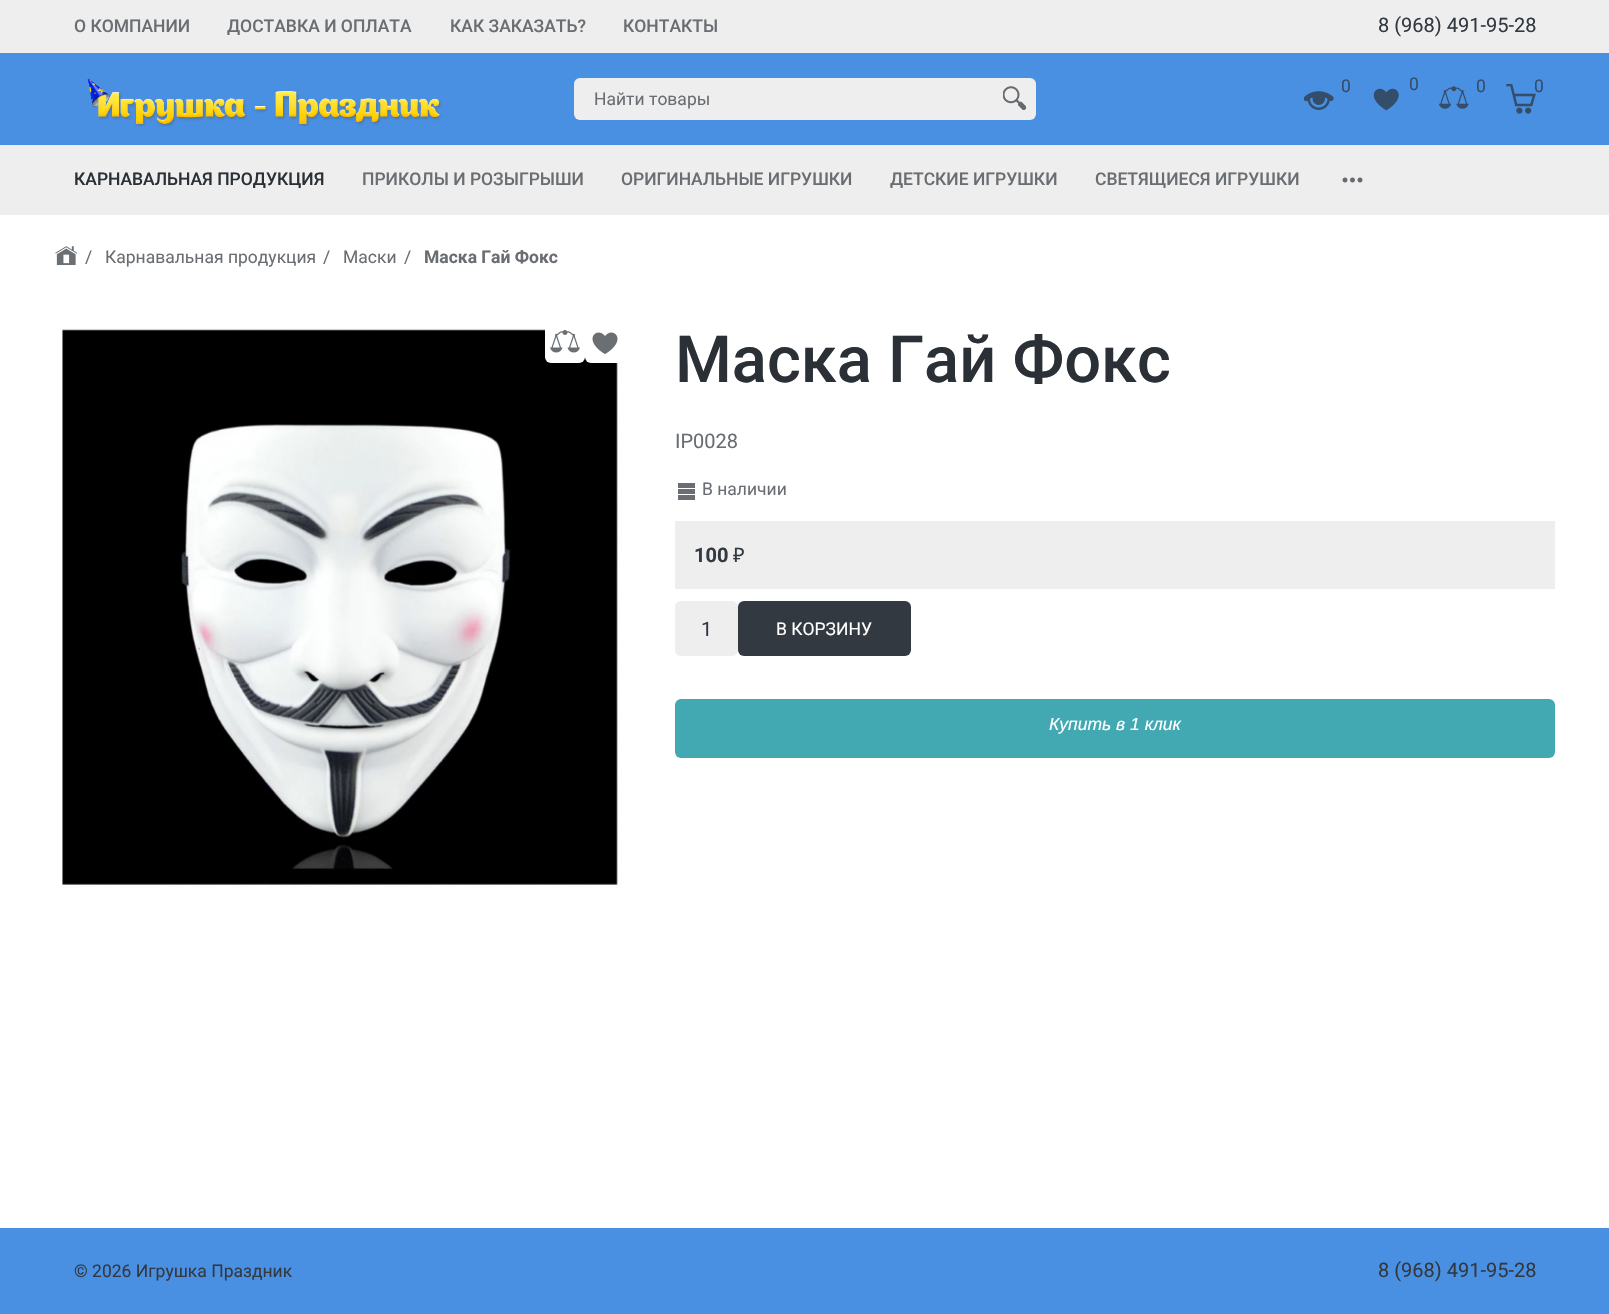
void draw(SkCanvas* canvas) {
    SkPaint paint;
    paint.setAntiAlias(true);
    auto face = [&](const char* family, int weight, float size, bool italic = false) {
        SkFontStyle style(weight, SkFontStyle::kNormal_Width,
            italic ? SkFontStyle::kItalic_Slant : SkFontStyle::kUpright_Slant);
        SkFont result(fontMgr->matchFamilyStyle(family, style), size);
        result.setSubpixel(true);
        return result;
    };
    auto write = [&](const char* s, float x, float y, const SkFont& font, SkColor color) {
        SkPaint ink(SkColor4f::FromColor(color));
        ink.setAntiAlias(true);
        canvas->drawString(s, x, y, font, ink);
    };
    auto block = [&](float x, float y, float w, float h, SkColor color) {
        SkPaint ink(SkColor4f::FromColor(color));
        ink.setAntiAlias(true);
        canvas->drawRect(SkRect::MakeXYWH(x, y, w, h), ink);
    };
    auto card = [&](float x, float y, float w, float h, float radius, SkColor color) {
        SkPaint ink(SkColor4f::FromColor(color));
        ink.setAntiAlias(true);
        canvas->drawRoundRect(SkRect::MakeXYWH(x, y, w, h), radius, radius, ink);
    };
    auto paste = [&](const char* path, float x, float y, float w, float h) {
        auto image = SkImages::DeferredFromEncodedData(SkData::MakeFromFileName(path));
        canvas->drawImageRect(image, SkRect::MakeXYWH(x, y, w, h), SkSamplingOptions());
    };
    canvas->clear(SK_ColorWHITE);
    block(0, 0, 1609, 53, SkColorSetRGB(238, 238, 238));
    auto kFont1 = face("Roboto", 500, 17.5f);
    write("О КОМПАНИИ", 74, 32, kFont1, SkColorSetRGB(106, 110, 114));
    write("ДОСТАВКА И ОПЛАТА", 227, 32, kFont1, SkColorSetRGB(106, 110, 114));
    write("КАК ЗАКАЗАТЬ?", 450, 32, kFont1, SkColorSetRGB(106, 110, 114));
    write("КОНТАКТЫ", 623, 32, kFont1, SkColorSetRGB(106, 110, 114));
    auto kFont2 = face("Roboto", 400, 20);
    write("8 (968) 491-95-28", 1378, 32, kFont2, SkColorSetRGB(50, 57, 65));
    block(0, 53, 1609, 92, SkColorSetRGB(74, 144, 226));
    paste("pic1.png", 87, 77, 356, 50);
    auto kFont3 = face("Roboto", 400, 17.5f);
    write("0", 1341, 92, kFont3, SkColorSetRGB(52, 77, 106));
    paste("pic2.png", 1304, 91, 30, 19);
    write("0", 1409, 90, kFont3, SkColorSetRGB(52, 77, 106));
    paste("pic3.png", 1373, 88, 26, 23);
    paste("pic4.png", 1439, 86, 30, 23);
    write("0", 1476, 92, kFont3, SkColorSetRGB(52, 77, 106));
    paste("pic5.png", 1506, 84, 30, 30);
    write("0", 1534, 92, kFont3, SkColorSetRGB(52, 77, 106));
    card(574, 78, 462, 42, 6, SkColorSetRGB(238, 238, 238));
    write("Найти товары", 594, 105, kFont3, SkColorSetRGB(106, 110, 114));
    paste("pic6.png", 1003, 86, 23, 24);
    block(0, 145, 1609, 70, SkColorSetRGB(238, 238, 238));
    write("КАРНАВАЛЬНАЯ ПРОДУКЦИЯ", 74, 185, kFont1, SkColorSetRGB(42, 48, 54));
    write("ПРИКОЛЫ И РОЗЫГРЫШИ", 362, 185, kFont1, SkColorSetRGB(106, 110, 114));
    write("ОРИГИНАЛЬНЫЕ ИГРУШКИ", 621, 185, kFont1, SkColorSetRGB(106, 110, 114));
    write("ДЕТСКИЕ ИГРУШКИ", 890, 185, kFont1, SkColorSetRGB(106, 110, 114));
    write("СВЕТЯЩИЕСЯ ИГРУШКИ", 1095, 185, kFont1, SkColorSetRGB(106, 110, 114));
    paste("pic7.png", 1342, 177, 21, 6);
    paste("pic8.png", 55, 246, 23, 19);
    write("/", 85, 263, kFont3, SkColorSetRGB(106, 110, 114));
    write("Карнавальная продукция", 105, 263, kFont3, SkColorSetRGB(106, 110, 114));
    write("/", 323, 263, kFont3, SkColorSetRGB(106, 110, 114));
    write("Маски", 343, 263, kFont3, SkColorSetRGB(106, 110, 114));
    write("/", 404, 263, kFont3, SkColorSetRGB(106, 110, 114));
    auto kFont4 = face("Roboto", 700, 17.5f);
    write("Маска Гай Фокс", 424, 263, kFont4, SkColorSetRGB(106, 110, 114));
    paste("pic11.png", 61, 328, 560, 561);
    card(545, 323, 40, 40, 6, SK_ColorWHITE);
    paste("pic9.png", 550, 330, 30, 23);
    card(585, 323, 40, 40, 6, SK_ColorWHITE);
    paste("pic10.png", 592, 332, 26, 22);
    auto kFont5 = face("Roboto", 500, 65);
    write("Маска Гай Фокс", 675, 382, kFont5, SkColorSetRGB(42, 48, 54));
    write("IP0028", 675, 448, kFont2, SkColorSetRGB(106, 110, 114));
    block(678, 483, 17, 5, SkColorSetRGB(106, 110, 114));
    block(678, 489, 17, 5, SkColorSetRGB(106, 110, 114));
    block(678, 495, 17, 5, SkColorSetRGB(106, 110, 114));
    write("В наличии", 702, 495, kFont3, SkColorSetRGB(106, 110, 114));
    block(675, 521, 880, 68, SkColorSetRGB(238, 238, 238));
    auto kFont6 = face("Roboto", 700, 20);
    write("100", 694, 562, kFont6, SkColorSetRGB(50, 57, 65));
    auto kFont7 = face("Noto Sans", 400, 20);
    write("₽", 733, 562, kFont7, SkColorSetRGB(50, 57, 65));
    card(675, 601, 63, 55, 6, SkColorSetRGB(238, 238, 238));
    write("1", 701, 636, kFont2, SkColorSetRGB(50, 57, 65));
    card(738, 601, 173, 55, 6, SkColorSetRGB(50, 57, 65));
    write("В КОРЗИНУ", 776, 635, kFont3, SK_ColorWHITE);
    card(675, 699, 880, 59, 6, SkColorSetRGB(66, 169, 178));
    auto kFont8 = face("Liberation Sans", 400, 17.5f, true);
    write("Купить в 1 клик", 1049, 730, kFont8, SK_ColorWHITE);
    block(0, 1228, 1609, 86, SkColorSetRGB(74, 144, 226));
    write("© 2026 Игрушка Праздник", 74, 1277, kFont3, SkColorSetRGB(50, 57, 65));
    write("8 (968) 491-95-28", 1378, 1277, kFont2, SkColorSetRGB(50, 57, 65));
}
